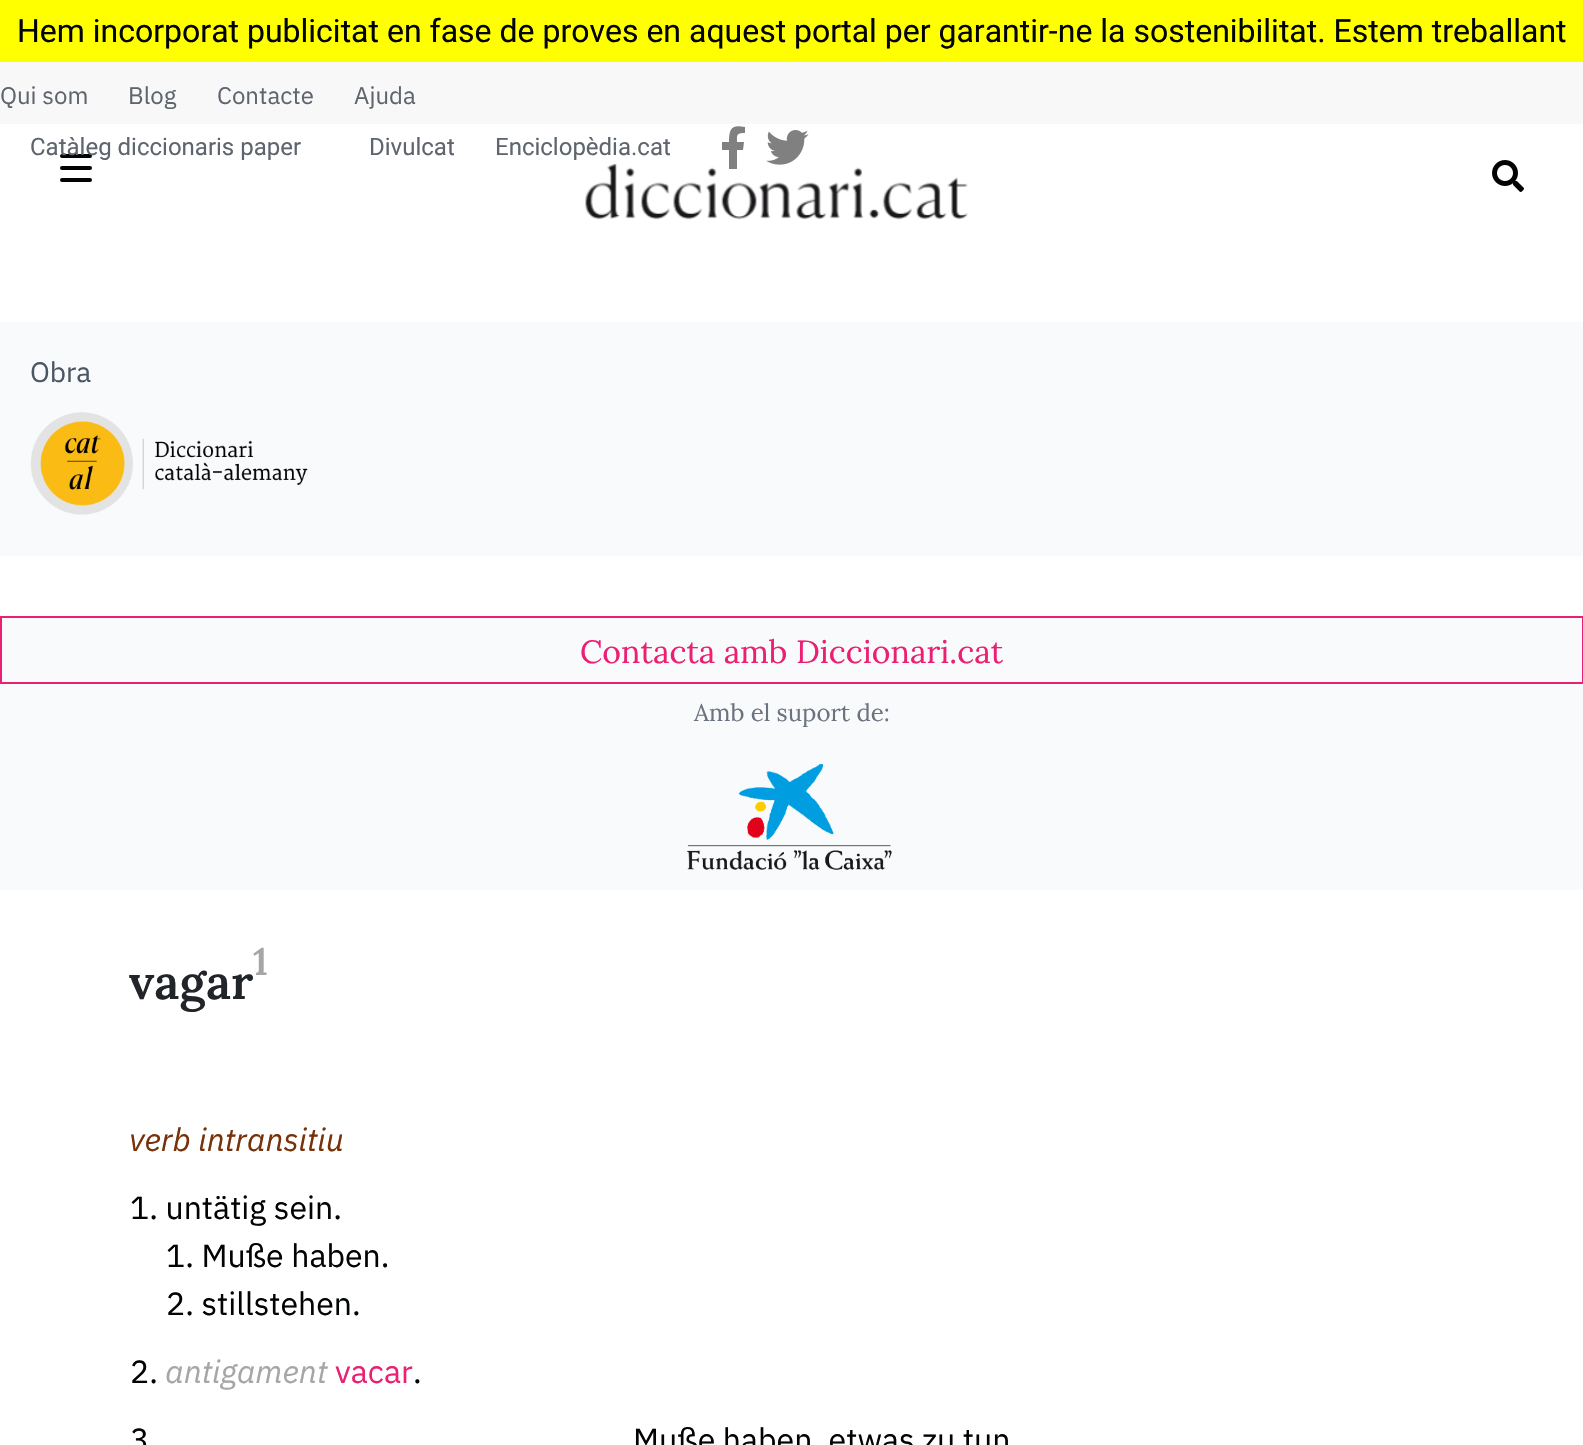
void draw(SkCanvas* canvas) {
    SkPaint paint;
    paint.setAntiAlias(true);
    auto face = [&](const char* family, int weight, float size, bool italic = false) {
        SkFontStyle style(weight, SkFontStyle::kNormal_Width,
            italic ? SkFontStyle::kItalic_Slant : SkFontStyle::kUpright_Slant);
        SkFont result(fontMgr->matchFamilyStyle(family, style), size);
        result.setSubpixel(true);
        return result;
    };
    auto write = [&](const char* s, float x, float y, const SkFont& font, SkColor color) {
        SkPaint ink(SkColor4f::FromColor(color));
        ink.setAntiAlias(true);
        canvas->drawString(s, x, y, font, ink);
    };
    auto block = [&](float x, float y, float w, float h, SkColor color) {
        SkPaint ink(SkColor4f::FromColor(color));
        ink.setAntiAlias(true);
        canvas->drawRect(SkRect::MakeXYWH(x, y, w, h), ink);
    };
    auto card = [&](float x, float y, float w, float h, float radius, SkColor color) {
        SkPaint ink(SkColor4f::FromColor(color));
        ink.setAntiAlias(true);
        canvas->drawRoundRect(SkRect::MakeXYWH(x, y, w, h), radius, radius, ink);
    };
    auto paste = [&](const char* path, float x, float y, float w, float h) {
        auto image = SkImages::DeferredFromEncodedData(SkData::MakeFromFileName(path));
        canvas->drawImageRect(image, SkRect::MakeXYWH(x, y, w, h), SkSamplingOptions());
    };
    canvas->clear(SK_ColorWHITE);
    block(0, 0, 1583, 62, SkColorSetRGB(255, 255, 0));
    auto kFont1 = face("Roboto", 400, 32);
    write("Hem incorporat publicitat en fase de proves en aquest portal per garantir-ne la sostenibilitat. Estem treballant", 17, 42, kFont1, SkColorSetRGB(2, 3, 3));
    block(0, 62, 1583, 62, SkColorSetRGB(248, 248, 248));
    auto kFont2 = face("IBM Plex Sans", 400, 24);
    write("Qui som", 0, 104, kFont2, SkColorSetRGB(94, 101, 110));
    write("Blog", 128, 104, kFont2, SkColorSetRGB(94, 101, 110));
    write("Contacte", 217, 104, kFont2, SkColorSetRGB(94, 101, 110));
    write("Ajuda", 354, 104, kFont2, SkColorSetRGB(94, 101, 110));
    card(60, 154, 32, 4, 2, SkColorSetRGB(2, 3, 3));
    auto kFont3 = face("Roboto", 400, 24);
    write("Catàleg diccionaris paper", 30, 155, kFont3, SkColorSetRGB(94, 101, 110));
    write("Divulcat", 369, 155, kFont3, SkColorSetRGB(94, 101, 110));
    write("Enciclopèdia.cat", 495, 155, kFont3, SkColorSetRGB(94, 101, 110));
    paste("pic2.png", 585, 163, 383, 57);
    paint.setColor(SkColorSetRGB(128, 128, 128));
    canvas->drawPath(SkPathBuilder().moveTo(743, 150).lineTo(744, 142).lineTo(737, 142).cubicTo(737, 135, 736, 133, 745, 133).lineTo(745, 127).cubicTo(731, 124, 729, 129, 729, 142).lineTo(722, 142).lineTo(722, 150).lineTo(729, 150).lineTo(729, 169).lineTo(737, 169).lineTo(737, 150).close().detach(), paint);
    paste("pic1.png", 766, 130, 43, 35);
    card(60, 166, 32, 4, 2, SkColorSetRGB(2, 3, 3));
    card(60, 178, 32, 4, 2, SkColorSetRGB(2, 3, 3));
    paste("pic3.png", 1492, 160, 32, 32);
    block(0, 322, 1583, 234, SkColorSetRGB(249, 250, 251));
    auto kFont4 = face("IBM Plex Sans", 400, 28);
    write("Obra", 30, 382, kFont4, SkColorSetRGB(75, 85, 99));
    paste("pic4.png", 30, 412, 278, 103);
    paint.setColor(SkColorSetRGB(249, 250, 251));
    canvas->drawRect(SkRect::MakeXYWH(1, 617, 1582, 66), paint);
    paint.setStyle(SkPaint::kStroke_Style);
    paint.setStrokeWidth(2);
    paint.setColor(SkColorSetRGB(235, 31, 115));
    canvas->drawRect(SkRect::MakeXYWH(1, 617, 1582, 66), paint);
    auto kFont5 = face("Lora", 400, 32);
    write("Contacta amb Diccionari.cat", 580, 663, kFont5, SkColorSetRGB(235, 31, 115));
    block(0, 684, 1583, 206, SkColorSetRGB(249, 250, 251));
    auto kFont6 = face("Lora", 400, 24);
    write("Amb el suport de:", 694, 721, kFont6, SkColorSetRGB(107, 114, 128));
    paste("pic5.png", 687, 764, 205, 106);
    auto kFont7 = face("Lora", 600, 38);
    write("1", 253, 975, kFont7, SkColorSetRGB(166, 166, 166));
    auto kFont8 = face("Lora", 600, 48);
    write("vagar", 129, 999, kFont8, SkColorSetRGB(33, 37, 41));
    auto kFont9 = face("IBM Plex Sans", 400, 32, true);
    write("verb intransitiu", 129, 1151, kFont9, SkColorSetRGB(120, 50, 10));
    auto kFont10 = face("IBM Plex Sans", 400, 32);
    write("1. untätig sein.", 130, 1219, kFont10, SkColorSetRGB(2, 3, 3));
    write("1. Muße haben.", 166, 1267, kFont10, SkColorSetRGB(2, 3, 3));
    write("2. stillstehen.", 166, 1315, kFont10, SkColorSetRGB(2, 3, 3));
    write("2.", 130, 1383, kFont10, SkColorSetRGB(2, 3, 3));
    write("antigament", 165, 1383, kFont9, SkColorSetRGB(166, 166, 166));
    write("vacar", 335, 1383, kFont10, SkColorSetRGB(235, 31, 115));
    write(".", 413, 1383, kFont10, SkColorSetRGB(2, 3, 3));
    write("3", 130, 1451, kFont10, SkColorSetRGB(2, 3, 3));
    write("Muße haben, etwas zu tun", 633, 1451, kFont10, SkColorSetRGB(2, 3, 3));
}
